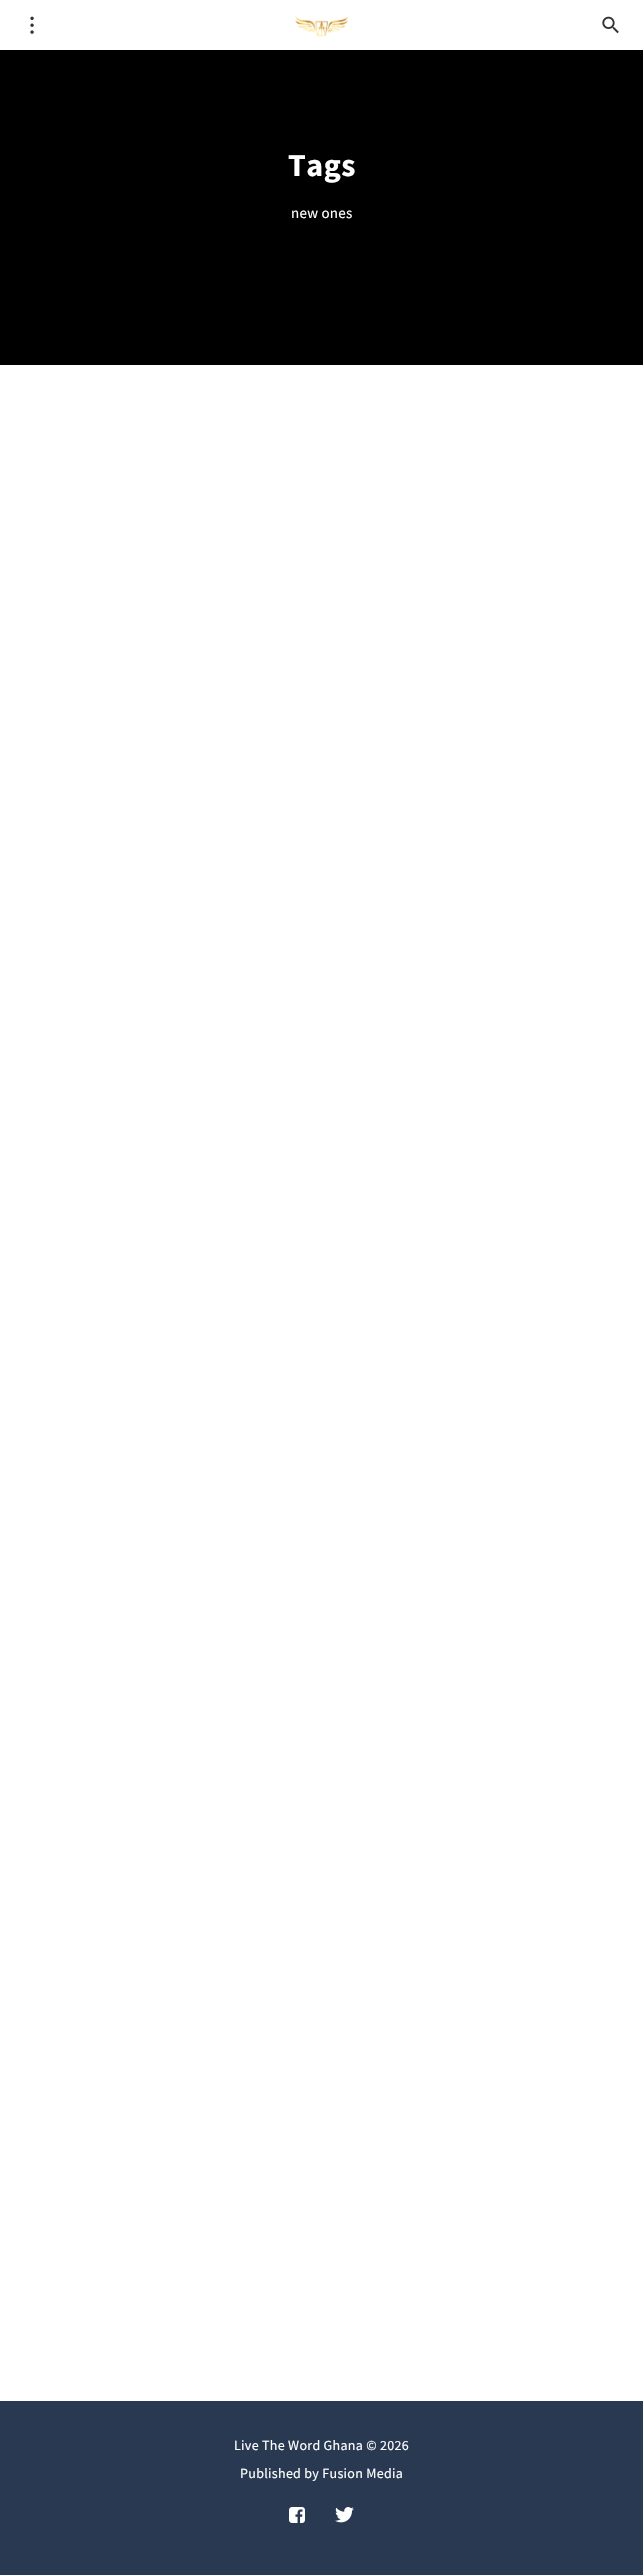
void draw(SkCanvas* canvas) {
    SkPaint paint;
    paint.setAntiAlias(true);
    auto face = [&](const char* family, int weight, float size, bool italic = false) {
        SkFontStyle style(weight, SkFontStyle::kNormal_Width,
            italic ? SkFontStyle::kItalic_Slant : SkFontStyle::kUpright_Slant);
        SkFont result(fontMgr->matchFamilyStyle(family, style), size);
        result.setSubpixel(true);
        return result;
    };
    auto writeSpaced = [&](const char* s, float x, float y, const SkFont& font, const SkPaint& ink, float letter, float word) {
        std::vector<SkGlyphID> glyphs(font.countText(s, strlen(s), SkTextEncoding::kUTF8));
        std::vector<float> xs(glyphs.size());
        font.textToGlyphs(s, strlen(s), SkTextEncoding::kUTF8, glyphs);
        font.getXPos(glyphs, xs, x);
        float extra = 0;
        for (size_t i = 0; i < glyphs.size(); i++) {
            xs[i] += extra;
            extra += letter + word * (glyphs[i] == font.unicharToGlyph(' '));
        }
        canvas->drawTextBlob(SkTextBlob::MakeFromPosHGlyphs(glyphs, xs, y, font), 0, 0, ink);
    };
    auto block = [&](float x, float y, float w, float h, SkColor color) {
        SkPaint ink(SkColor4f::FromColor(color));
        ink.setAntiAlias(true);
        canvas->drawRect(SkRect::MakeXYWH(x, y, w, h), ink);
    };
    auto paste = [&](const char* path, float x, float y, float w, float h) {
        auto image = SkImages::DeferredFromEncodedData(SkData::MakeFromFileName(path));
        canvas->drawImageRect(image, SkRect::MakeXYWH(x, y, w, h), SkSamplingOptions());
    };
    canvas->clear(SK_ColorWHITE);
    paste("pic1.png", 30, 16, 4, 18);
    paste("pic2.png", 295, 16, 53, 21);
    paste("pic3.png", 602, 16, 17, 18);
    block(0, 50, 643, 315, SK_ColorBLACK);
    auto kFont1 = face("Source Sans Pro", 700, 32);
    paint.setColor(SK_ColorWHITE);
    writeSpaced("Tags", 288, 176, kFont1, paint, 0.5f, 0);
    auto kFont2 = face("Source Sans Pro", 400, 15);
    writeSpaced("new ones", 291, 218, kFont2, paint, 0.25f, 0);
    block(0, 2401, 643, 174, SkColorSetRGB(41, 57, 81));
    auto kFont3 = face("Source Sans Pro", 400, 14);
    writeSpaced("Live The Word Ghana © 2026", 234, 2450, kFont3, paint, 0.3f, 0);
    writeSpaced("Published by Fusion Media", 240, 2478, kFont3, paint, 0.3f, 0);
    paste("pic4.png", 289, 2507, 16, 16);
    paste("pic5.png", 335, 2507, 19, 16);
}
